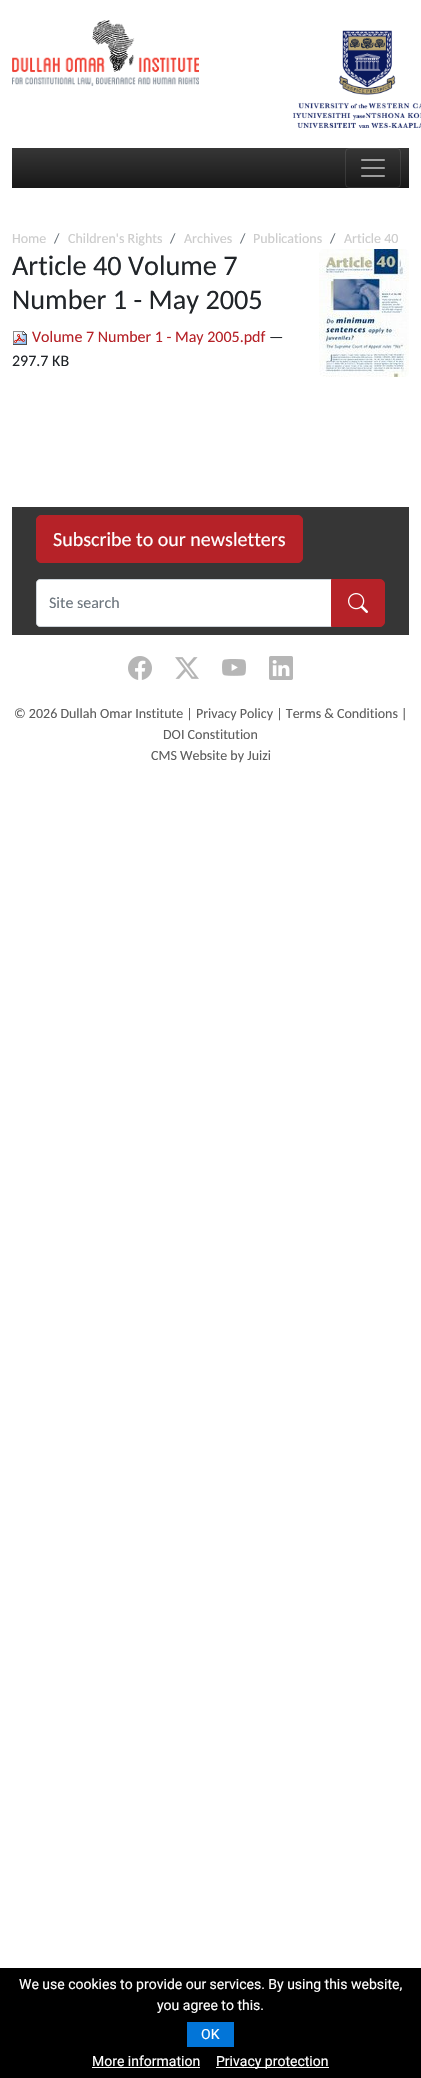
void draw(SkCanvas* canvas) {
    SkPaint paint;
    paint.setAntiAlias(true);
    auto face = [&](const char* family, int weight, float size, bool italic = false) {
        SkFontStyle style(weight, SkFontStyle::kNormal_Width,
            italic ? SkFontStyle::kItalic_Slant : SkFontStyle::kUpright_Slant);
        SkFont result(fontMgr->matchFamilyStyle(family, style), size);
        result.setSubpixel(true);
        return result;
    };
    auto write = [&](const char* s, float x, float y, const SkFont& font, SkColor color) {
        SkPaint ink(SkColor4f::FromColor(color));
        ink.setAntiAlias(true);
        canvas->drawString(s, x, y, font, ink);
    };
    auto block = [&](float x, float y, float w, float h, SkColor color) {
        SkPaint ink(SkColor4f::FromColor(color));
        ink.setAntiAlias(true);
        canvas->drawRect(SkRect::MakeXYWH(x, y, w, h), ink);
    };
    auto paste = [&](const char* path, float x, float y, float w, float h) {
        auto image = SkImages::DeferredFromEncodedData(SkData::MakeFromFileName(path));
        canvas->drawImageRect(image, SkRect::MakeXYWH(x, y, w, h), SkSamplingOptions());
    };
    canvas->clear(SK_ColorWHITE);
    paste("pic1.png", 12, 20, 187, 66);
    paste("pic2.png", 293, 30, 128, 98);
    {
        const SkColor colors[] = {SkColorSetRGB(54, 54, 54), SkColorSetRGB(24, 24, 24)};
        const float stops[] = {0, 1};
        const SkPoint ends[] = {{211, 148}, {211, 188}};
        paint.setShader(SkGradientShader::MakeLinear(ends, colors, stops, 2, SkTileMode::kClamp));
        paint.setAlpha(255);
    }
    canvas->drawRect(SkRect::MakeXYWH(12, 148, 397, 40), paint);
    paint.setStyle(SkPaint::kStroke_Style);
    paint.setStrokeWidth(1);
    paint.setShader(nullptr);
    paint.setColor(SkColorSetARGB(26, 255, 255, 255));
    canvas->drawRoundRect(SkRect::MakeXYWH(345.5f, 148.5f, 55, 39), 3.5f, 3.5f, paint);
    paste("pic3.png", 361, 159, 24, 18);
    auto kFont1 = face("Carlito", 400, 14);
    write("Home", 12, 243, kFont1, SkColorSetRGB(204, 204, 204));
    write("/", 54, 243, kFont1, SkColorSetRGB(108, 117, 125));
    write("Children's Rights", 68, 243, kFont1, SkColorSetRGB(204, 204, 204));
    write("/", 170, 243, kFont1, SkColorSetRGB(108, 117, 125));
    write("Archives", 184, 243, kFont1, SkColorSetRGB(204, 204, 204));
    write("/", 240, 243, kFont1, SkColorSetRGB(108, 117, 125));
    write("Publications", 253, 243, kFont1, SkColorSetRGB(204, 204, 204));
    write("/", 330, 243, kFont1, SkColorSetRGB(108, 117, 125));
    write("Article 40", 344, 243, kFont1, SkColorSetRGB(204, 204, 204));
    auto kFont2 = face("Carlito", 400, 28.25f);
    write("Article 40 Volume 7", 12, 275, kFont2, SkColorSetRGB(33, 37, 41));
    write("Number 1 - May 2005", 12, 309, kFont2, SkColorSetRGB(33, 37, 41));
    paste("pic4.png", 319, 249, 90, 128);
    paste("pic5.png", 13, 331, 14, 14);
    auto kFont3 = face("Carlito", 400, 16);
    write("Volume 7 Number 1 - May 2005.pdf", 32, 342, kFont3, SkColorSetRGB(182, 34, 40));
    write("—", 269, 342, kFont3, SkColorSetRGB(33, 37, 41));
    write("297.7 KB", 12, 366, kFont3, SkColorSetRGB(33, 37, 41));
    block(12, 507, 397, 128, SkColorSetRGB(54, 54, 54));
    paint.setStyle(SkPaint::kFill_Style);
    paint.setColor(SkColorSetRGB(182, 34, 40));
    canvas->drawRoundRect(SkRect::MakeXYWH(36.5f, 515.5f, 266, 47), 4.5f, 4.5f, paint);
    paint.setStyle(SkPaint::kStroke_Style);
    canvas->drawRoundRect(SkRect::MakeXYWH(36.5f, 515.5f, 266, 47), 4.5f, 4.5f, paint);
    auto kFont4 = face("Carlito", 400, 20);
    write("Subscribe to our newsletters", 53, 546, kFont4, SK_ColorWHITE);
    paint.setStyle(SkPaint::kFill_Style);
    paint.setColor(SK_ColorWHITE);
    canvas->drawPath(SkPathBuilder().moveTo(40, 579.5f).lineTo(331.5f, 579.5f).lineTo(331.5f, 626.5f).lineTo(40, 626.5f).cubicTo(38, 626.5f, 36.5f, 625, 36.5f, 623).lineTo(36.5f, 583).cubicTo(36.5f, 581, 38, 579.5f, 40, 579.5f).close().detach(), paint);
    paint.setStyle(SkPaint::kStroke_Style);
    paint.setColor(SkColorSetRGB(206, 212, 218));
    canvas->drawPath(SkPathBuilder().moveTo(40, 579.5f).lineTo(331.5f, 579.5f).lineTo(331.5f, 626.5f).lineTo(40, 626.5f).cubicTo(38, 626.5f, 36.5f, 625, 36.5f, 623).lineTo(36.5f, 583).cubicTo(36.5f, 581, 38, 579.5f, 40, 579.5f).close().detach(), paint);
    write("Site search", 49, 608, kFont3, SkColorSetRGB(108, 117, 125));
    paint.setStyle(SkPaint::kFill_Style);
    paint.setColor(SkColorSetRGB(182, 34, 40));
    canvas->drawPath(SkPathBuilder().moveTo(331.5f, 579.5f).lineTo(380, 579.5f).cubicTo(382.5f, 579.5f, 384.5f, 581.5f, 384.5f, 584).lineTo(384.5f, 622).cubicTo(384.5f, 624.5f, 382.5f, 626.5f, 380, 626.5f).lineTo(331.5f, 626.5f).close().detach(), paint);
    paint.setStyle(SkPaint::kStroke_Style);
    canvas->drawPath(SkPathBuilder().moveTo(331.5f, 579.5f).lineTo(380, 579.5f).cubicTo(382.5f, 579.5f, 384.5f, 581.5f, 384.5f, 584).lineTo(384.5f, 622).cubicTo(384.5f, 624.5f, 382.5f, 626.5f, 380, 626.5f).lineTo(331.5f, 626.5f).close().detach(), paint);
    paste("pic6.png", 348, 593, 20, 20);
    paste("pic7.png", 128, 656, 24, 24);
    paste("pic8.png", 175, 657, 24, 22);
    paste("pic9.png", 222, 659, 24, 17);
    paste("pic10.png", 269, 656, 24, 24);
    write("© 2026 Dullah Omar Institute | Privacy Policy | Terms & Conditions |", 14, 718, kFont1, SkColorSetRGB(93, 93, 93));
    write("DOI Constitution", 163, 739, kFont1, SkColorSetRGB(93, 93, 93));
    write("CMS Website by Juizi", 151, 760, kFont1, SkColorSetRGB(93, 93, 93));
    block(0, 1968, 421, 110, SK_ColorBLACK);
    auto kFont5 = face("Roboto", 400, 14);
    write("We use cookies to provide our services. By using this website,", 19, 1989, kFont5, SK_ColorWHITE);
    write("you agree to this.", 157, 2010, kFont5, SK_ColorWHITE);
    block(187, 2022, 47, 25, SkColorSetRGB(2, 117, 216));
    write("OK", 201, 2039, kFont5, SK_ColorWHITE);
    write("More information", 92, 2066, kFont5, SK_ColorWHITE);
    block(92, 2067, 108, 1, SK_ColorWHITE);
    block(216, 2067, 113, 1, SK_ColorWHITE);
    write("Privacy protection", 216, 2066, kFont5, SK_ColorWHITE);
}
